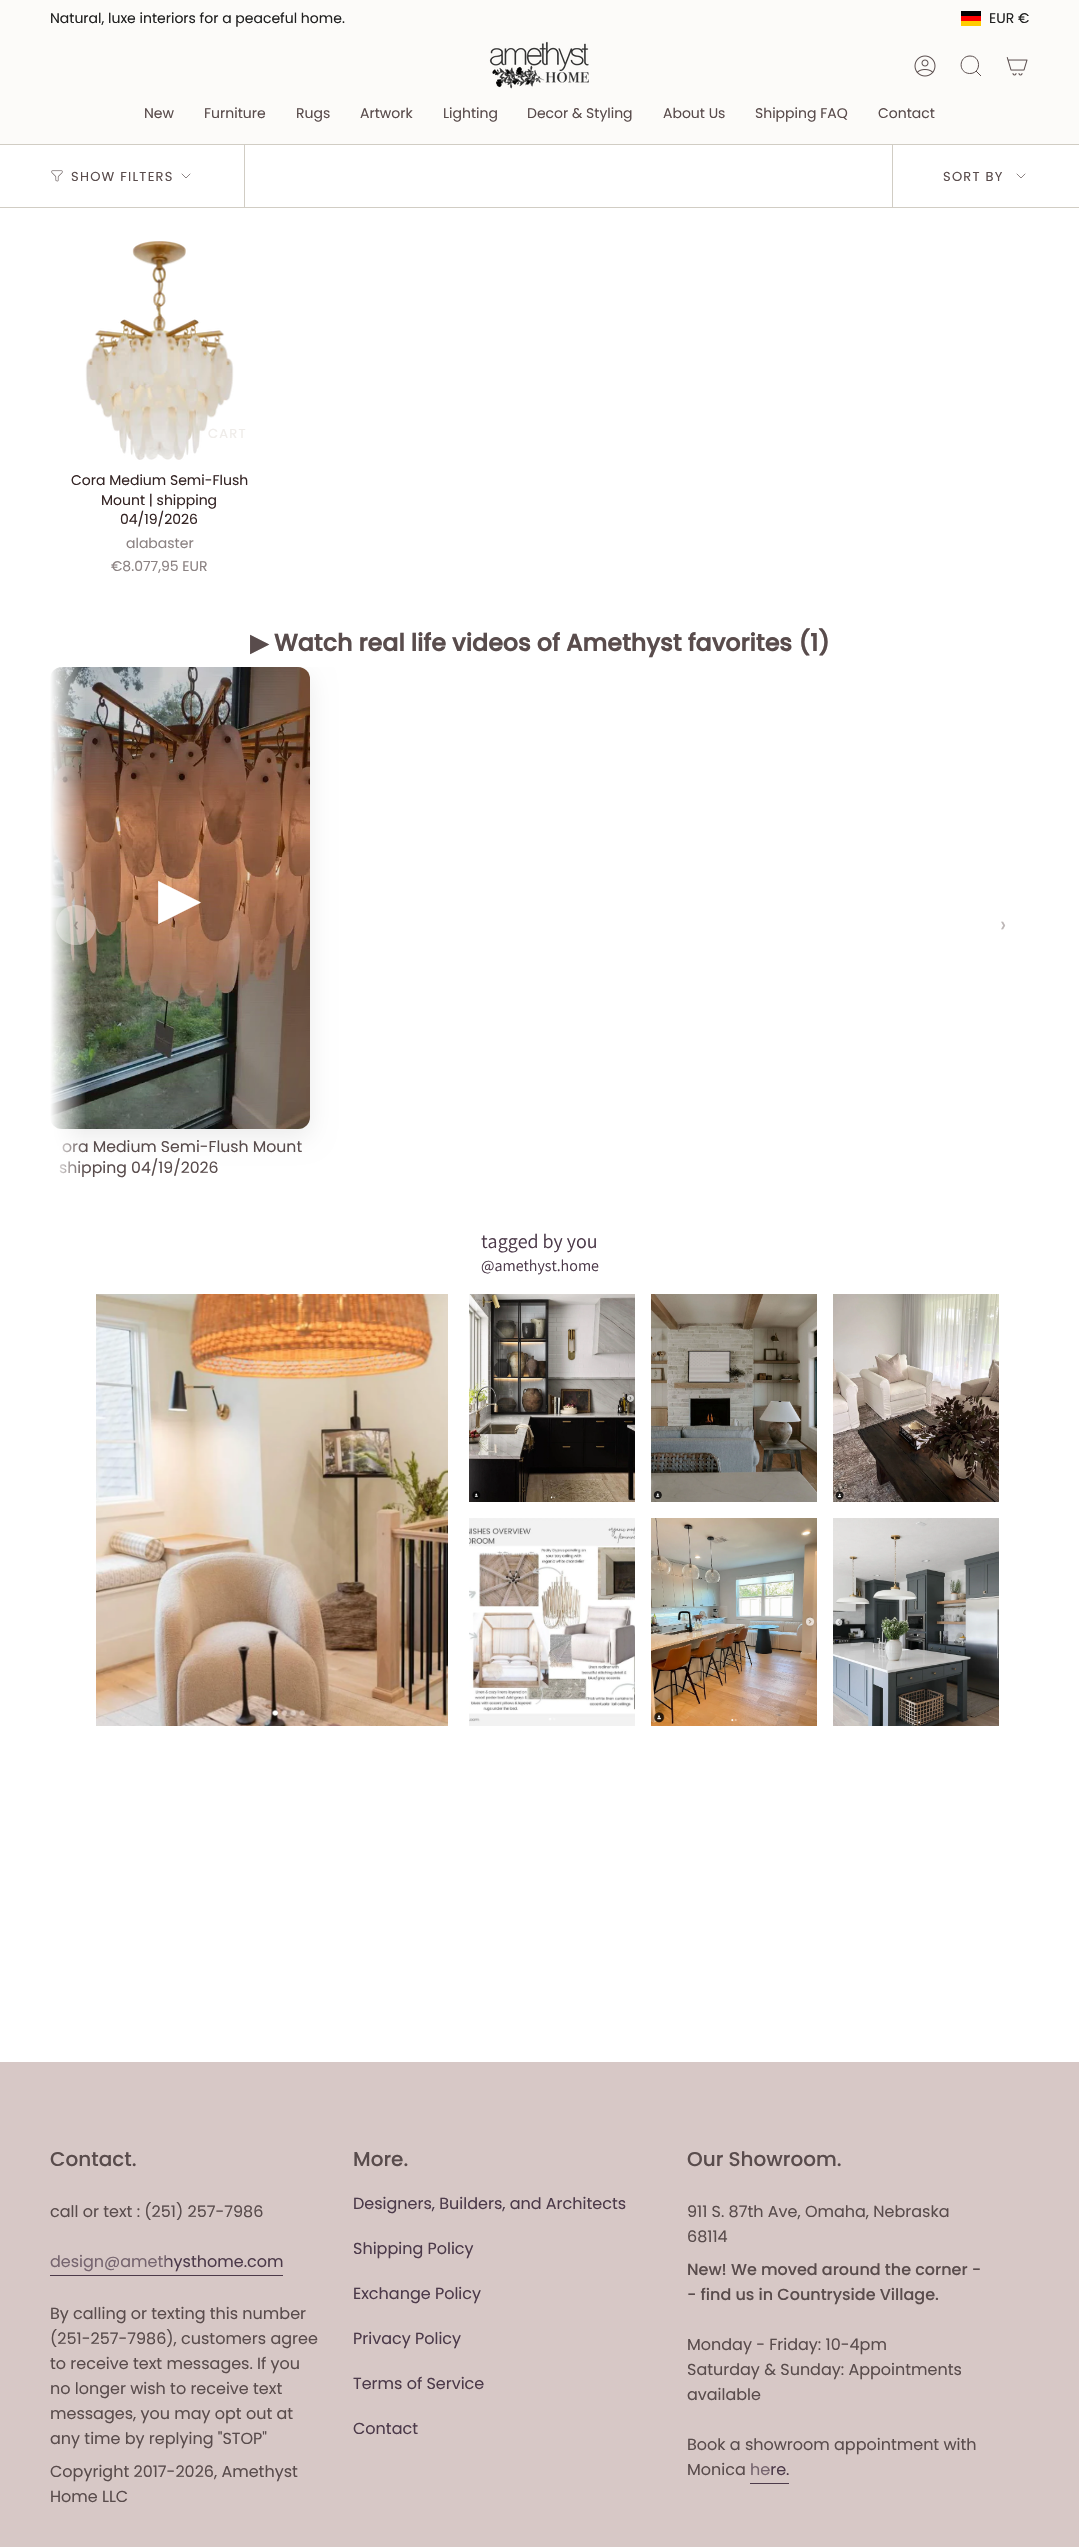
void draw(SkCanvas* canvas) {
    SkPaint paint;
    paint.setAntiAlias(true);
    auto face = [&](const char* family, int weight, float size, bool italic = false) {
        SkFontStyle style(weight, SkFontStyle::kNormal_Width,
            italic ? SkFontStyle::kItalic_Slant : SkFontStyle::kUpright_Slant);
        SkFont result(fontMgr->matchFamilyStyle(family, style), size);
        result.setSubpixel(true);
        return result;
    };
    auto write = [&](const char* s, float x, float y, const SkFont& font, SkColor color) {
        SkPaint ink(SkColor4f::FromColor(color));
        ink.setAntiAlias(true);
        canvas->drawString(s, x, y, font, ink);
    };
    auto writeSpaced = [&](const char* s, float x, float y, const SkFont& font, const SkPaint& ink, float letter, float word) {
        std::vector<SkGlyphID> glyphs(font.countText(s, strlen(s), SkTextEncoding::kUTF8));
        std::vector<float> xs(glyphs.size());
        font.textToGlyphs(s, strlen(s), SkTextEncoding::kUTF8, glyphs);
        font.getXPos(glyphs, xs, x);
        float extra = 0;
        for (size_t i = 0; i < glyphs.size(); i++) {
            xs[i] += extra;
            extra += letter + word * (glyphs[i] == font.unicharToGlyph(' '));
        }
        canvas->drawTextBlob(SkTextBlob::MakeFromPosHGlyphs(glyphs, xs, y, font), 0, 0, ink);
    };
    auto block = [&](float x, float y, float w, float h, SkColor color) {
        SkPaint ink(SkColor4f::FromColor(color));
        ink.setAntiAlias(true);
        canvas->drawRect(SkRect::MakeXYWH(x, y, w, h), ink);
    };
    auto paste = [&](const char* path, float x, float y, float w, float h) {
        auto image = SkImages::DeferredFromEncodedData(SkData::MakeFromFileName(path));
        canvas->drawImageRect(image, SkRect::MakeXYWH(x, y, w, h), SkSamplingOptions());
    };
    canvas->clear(SK_ColorWHITE);
    block(0, 0, 1079, 144, SkColorSetRGB(252, 251, 249));
    auto kFont1 = face("Poppins", 400, 14);
    write("Natural, luxe interiors for a peaceful home.", 50, 23, kFont1, SkColorSetRGB(33, 33, 33));
    block(961, 21, 20, 5, SkColorSetRGB(255, 204, 0));
    block(961, 11, 20, 5, SK_ColorBLACK);
    block(961, 16, 20, 5, SkColorSetRGB(255, 0, 0));
    write("EUR €", 989, 23, kFont1, SkColorSetRGB(33, 33, 33));
    paste("pic1.png", 489, 41, 100, 48);
    paste("pic2.png", 914, 55, 22, 22);
    paint.setStyle(SkPaint::kStroke_Style);
    paint.setStrokeWidth(1);
    paint.setColor(SkColorSetRGB(89, 76, 76));
    canvas->drawPath(SkPathBuilder().moveTo(970, 56).cubicTo(981.5f, 56, 981.5f, 74, 969.5f, 73.5f).cubicTo(958, 73, 958.5f, 56, 970, 56).close().moveTo(976, 71).lineTo(981, 76).detach(), paint);
    paste("pic3.png", 1006, 57, 22, 19);
    write("New", 144, 118, kFont1, SkColorSetRGB(89, 76, 76));
    write("Furniture", 204, 118, kFont1, SkColorSetRGB(89, 76, 76));
    write("Rugs", 296, 118, kFont1, SkColorSetRGB(89, 76, 76));
    write("Artwork", 360, 118, kFont1, SkColorSetRGB(89, 76, 76));
    write("Lighting", 443, 118, kFont1, SkColorSetRGB(89, 76, 76));
    write("Decor & Styling", 527, 118, kFont1, SkColorSetRGB(89, 76, 76));
    write("About Us", 663, 118, kFont1, SkColorSetRGB(89, 76, 76));
    write("Shipping FAQ", 755, 118, kFont1, SkColorSetRGB(89, 76, 76));
    write("Contact", 878, 118, kFont1, SkColorSetRGB(89, 76, 76));
    block(0, 144, 1079, 1, SkColorSetRGB(209, 205, 196));
    block(0, 207, 1079, 1, SkColorSetRGB(209, 205, 196));
    block(244, 145, 1, 62, SkColorSetRGB(209, 205, 196));
    paste("pic4.png", 51, 170, 12, 12);
    auto kFont2 = face("Poppins", 400, 13);
    paint.setStyle(SkPaint::kFill_Style);
    writeSpaced("SHOW FILTERS", 71, 181, kFont2, paint, 1.25f, 0);
    paint.setStyle(SkPaint::kStroke_Style);
    paint.setStrokeWidth(0.7f);
    paint.setStrokeCap(SkPaint::kRound_Cap);
    paint.setStrokeJoin(SkPaint::kRound_Join);
    canvas->drawPath(SkPathBuilder().moveTo(182, 174).lineTo(186, 178).lineTo(190, 174).detach(), paint);
    block(892, 145, 1, 62, SkColorSetRGB(209, 205, 196));
    paint.setStyle(SkPaint::kFill_Style);
    writeSpaced("SORT BY", 943, 181, kFont2, paint, 1.25f, 0);
    paint.setStyle(SkPaint::kStroke_Style);
    canvas->drawPath(SkPathBuilder().moveTo(1017, 174).lineTo(1021, 178).lineTo(1025, 174).detach(), paint);
    paste("pic5.png", 85, 241, 149, 219);
    paint.setStyle(SkPaint::kFill_Style);
    paint.setColor(SkColorSetRGB(239, 236, 233));
    writeSpaced("CART", 208, 438, kFont2, paint, 1.25f, 0);
    write("Cora Medium Semi-Flush", 71, 485, kFont1, SkColorSetRGB(52, 36, 36));
    write("Mount | shipping", 101, 505, kFont1, SkColorSetRGB(52, 36, 36));
    write("04/19/2026", 120, 524, kFont1, SkColorSetRGB(52, 36, 36));
    write("alabaster", 126, 548, kFont1, SkColorSetRGB(139, 130, 130));
    write("€8.077,95 EUR", 111, 571, kFont1, SkColorSetRGB(139, 130, 130));
    auto kFont3 = face("DejaVu Sans", 700, 23.75f);
    write("▶", 250, 651, kFont3, SkColorSetRGB(89, 76, 76));
    auto kFont4 = face("Poppins", 700, 23.75f);
    write("Watch real life videos of Amethyst favorites (1)", 274, 651, kFont4, SkColorSetRGB(89, 76, 76));
    canvas->save();
    canvas->clipRect(SkRect::MakeXYWH(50, 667, 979, 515));
    paint.setColor(SkColorSetARGB(20, 0, 0, 0));
    paint.setMaskFilter(SkMaskFilter::MakeBlur(kNormal_SkBlurStyle, 12));
    canvas->drawRoundRect(SkRect::MakeXYWH(50, 675, 260, 462), 12, 12, paint);
    paint.setMaskFilter(nullptr);
    canvas->restore();
    paste("pic6.png", 50, 667, 260, 462);
    {
        const SkColor colors[] = {SkColorSetARGB(0, 0, 0, 0), SkColorSetARGB(46, 0, 0, 0)};
        const float stops[] = {0, 1};
        SkMatrix m = SkMatrix::Translate(180, 898).preScale(184, 327);
        paint.setShader(SkGradientShader::MakeRadial({0, 0}, 1, colors, stops, 2, SkTileMode::kClamp, 0, &m));
        paint.setAlpha(255);
    }
    canvas->drawRoundRect(SkRect::MakeXYWH(50, 667, 260, 462), 12, 12, paint);
    auto kFont5 = face("Poppins", 400, 15.7f);
    write("ora Medium Semi-Flush Mount", 62, 1152, kFont5, SkColorSetRGB(89, 76, 76));
    write("shipping 04/19/2026", 59, 1173, kFont5, SkColorSetRGB(89, 76, 76));
    {
        const SkColor colors[] = {SK_ColorWHITE, SkColorSetARGB(0, 255, 255, 255)};
        const float stops[] = {0, 1};
        const SkPoint ends[] = {{50, 925}, {86, 925}};
        paint.setShader(SkGradientShader::MakeLinear(ends, colors, stops, 2, SkTileMode::kClamp));
        paint.setAlpha(255);
    }
    canvas->drawRect(SkRect::MakeXYWH(50, 667, 35, 510), paint);
    auto kFont6 = face("DejaVu Sans", 400, 56);
    write("▶", 158, 917, kFont6, SK_ColorWHITE);
    paint.setShader(nullptr);
    paint.setColor(SkColorSetARGB(97, 255, 255, 255));
    canvas->drawCircle(76, 925, 20, paint);
    auto kFont7 = face("Poppins", 400, 22);
    write("‹", 73, 932, kFont7, SkColorSetRGB(152, 143, 136));
    write("›", 1000, 932, kFont7, SkColorSetRGB(189, 183, 183));
    auto kFont8 = face("Assistant", 400, 20);
    write("tagged by you", 481, 1248, kFont8, SkColorSetRGB(76, 58, 74));
    auto kFont9 = face("Assistant", 400, 16);
    write("@amethyst.home", 481, 1271, kFont9, SkColorSetRGB(76, 58, 74));
    paste("pic7.png", 96, 1294, 352, 432);
    paste("pic8.png", 469, 1294, 166, 208);
    paste("pic9.png", 651, 1294, 166, 208);
    paste("pic10.png", 833, 1294, 166, 208);
    paste("pic11.png", 469, 1518, 166, 208);
    paste("pic12.png", 651, 1518, 166, 208);
    paste("pic13.png", 833, 1518, 166, 208);
    block(0, 2062, 1079, 485, SkColorSetRGB(215, 200, 198));
    auto kFont10 = face("Poppins", 500, 20);
    write("Contact.", 50, 2166, kFont10, SkColorSetRGB(89, 76, 76));
    auto kFont11 = face("Poppins", 400, 16);
    write("call or text : (251) 257-7986", 50, 2217, kFont11, SkColorSetRGB(89, 76, 76));
    {
        const SkColor colors[] = {SkColorSetRGB(118, 101, 111), SkColorSetRGB(118, 101, 111), SkColorSetRGB(76, 58, 74), SkColorSetRGB(76, 58, 74)};
        const float stops[] = {0, 0.5f, 0.5f, 1};
        const SkPoint ends[] = {{50, 2263}, {283, 2263}};
        paint.setShader(SkGradientShader::MakeLinear(ends, colors, stops, 4, SkTileMode::kClamp));
        paint.setAlpha(255);
    }
    canvas->drawString("design@amethysthome.com", 50, 2267, kFont11, paint);
    block(50, 2275, 233, 1, SkColorSetRGB(76, 58, 74));
    write("By calling or texting this number", 50, 2319, kFont11, SkColorSetRGB(89, 76, 76));
    write("(251-257-7986), customers agree", 50, 2344, kFont11, SkColorSetRGB(89, 76, 76));
    write("to receive text messages. If you", 50, 2369, kFont11, SkColorSetRGB(89, 76, 76));
    write("no longer wish to receive text", 50, 2394, kFont11, SkColorSetRGB(89, 76, 76));
    write("messages, you may opt out at", 50, 2419, kFont11, SkColorSetRGB(89, 76, 76));
    write("any time by replying \"STOP\"", 50, 2444, kFont11, SkColorSetRGB(89, 76, 76));
    write("Copyright 2017-2026, Amethyst", 50, 2477, kFont11, SkColorSetRGB(89, 76, 76));
    write("Home LLC", 50, 2502, kFont11, SkColorSetRGB(89, 76, 76));
    write("More.", 353, 2166, kFont10, SkColorSetRGB(89, 76, 76));
    write("Designers, Builders, and Architects", 353, 2209, kFont11, SkColorSetRGB(76, 58, 74));
    write("Shipping Policy", 353, 2254, kFont11, SkColorSetRGB(76, 58, 74));
    write("Exchange Policy", 353, 2299, kFont11, SkColorSetRGB(76, 58, 74));
    write("Privacy Policy", 353, 2344, kFont11, SkColorSetRGB(76, 58, 74));
    write("Terms of Service", 353, 2389, kFont11, SkColorSetRGB(76, 58, 74));
    write("Contact", 353, 2434, kFont11, SkColorSetRGB(76, 58, 74));
    write("Our Showroom.", 687, 2166, kFont10, SkColorSetRGB(89, 76, 76));
    write("911 S. 87th Ave, Omaha, Nebraska", 687, 2217, kFont11, SkColorSetRGB(89, 76, 76));
    write("68114", 687, 2242, kFont11, SkColorSetRGB(89, 76, 76));
    auto kFont12 = face("Poppins", 500, 16);
    write("New! We moved around the corner -", 687, 2275, kFont12, SkColorSetRGB(89, 76, 76));
    write("- find us in Countryside Village.", 687, 2300, kFont12, SkColorSetRGB(89, 76, 76));
    write("Monday - Friday: 10-4pm", 687, 2350, kFont11, SkColorSetRGB(89, 76, 76));
    write("Saturday & Sunday: Appointments", 687, 2375, kFont11, SkColorSetRGB(89, 76, 76));
    write("available", 687, 2400, kFont11, SkColorSetRGB(89, 76, 76));
    write("Book a showroom appointment with", 687, 2450, kFont11, SkColorSetRGB(89, 76, 76));
    write("Monica", 687, 2475, kFont11, SkColorSetRGB(89, 76, 76));
    {
        const SkColor colors[] = {SkColorSetRGB(118, 101, 111), SkColorSetRGB(118, 101, 111), SkColorSetRGB(76, 58, 74), SkColorSetRGB(76, 58, 74)};
        const float stops[] = {0, 0.5f, 0.5f, 1};
        const SkPoint ends[] = {{750, 2471}, {789, 2471}};
        paint.setShader(SkGradientShader::MakeLinear(ends, colors, stops, 4, SkTileMode::kClamp));
        paint.setAlpha(255);
    }
    canvas->drawString("here.", 750, 2475, kFont11, paint);
    block(750, 2483, 39, 1, SkColorSetRGB(76, 58, 74));
}
